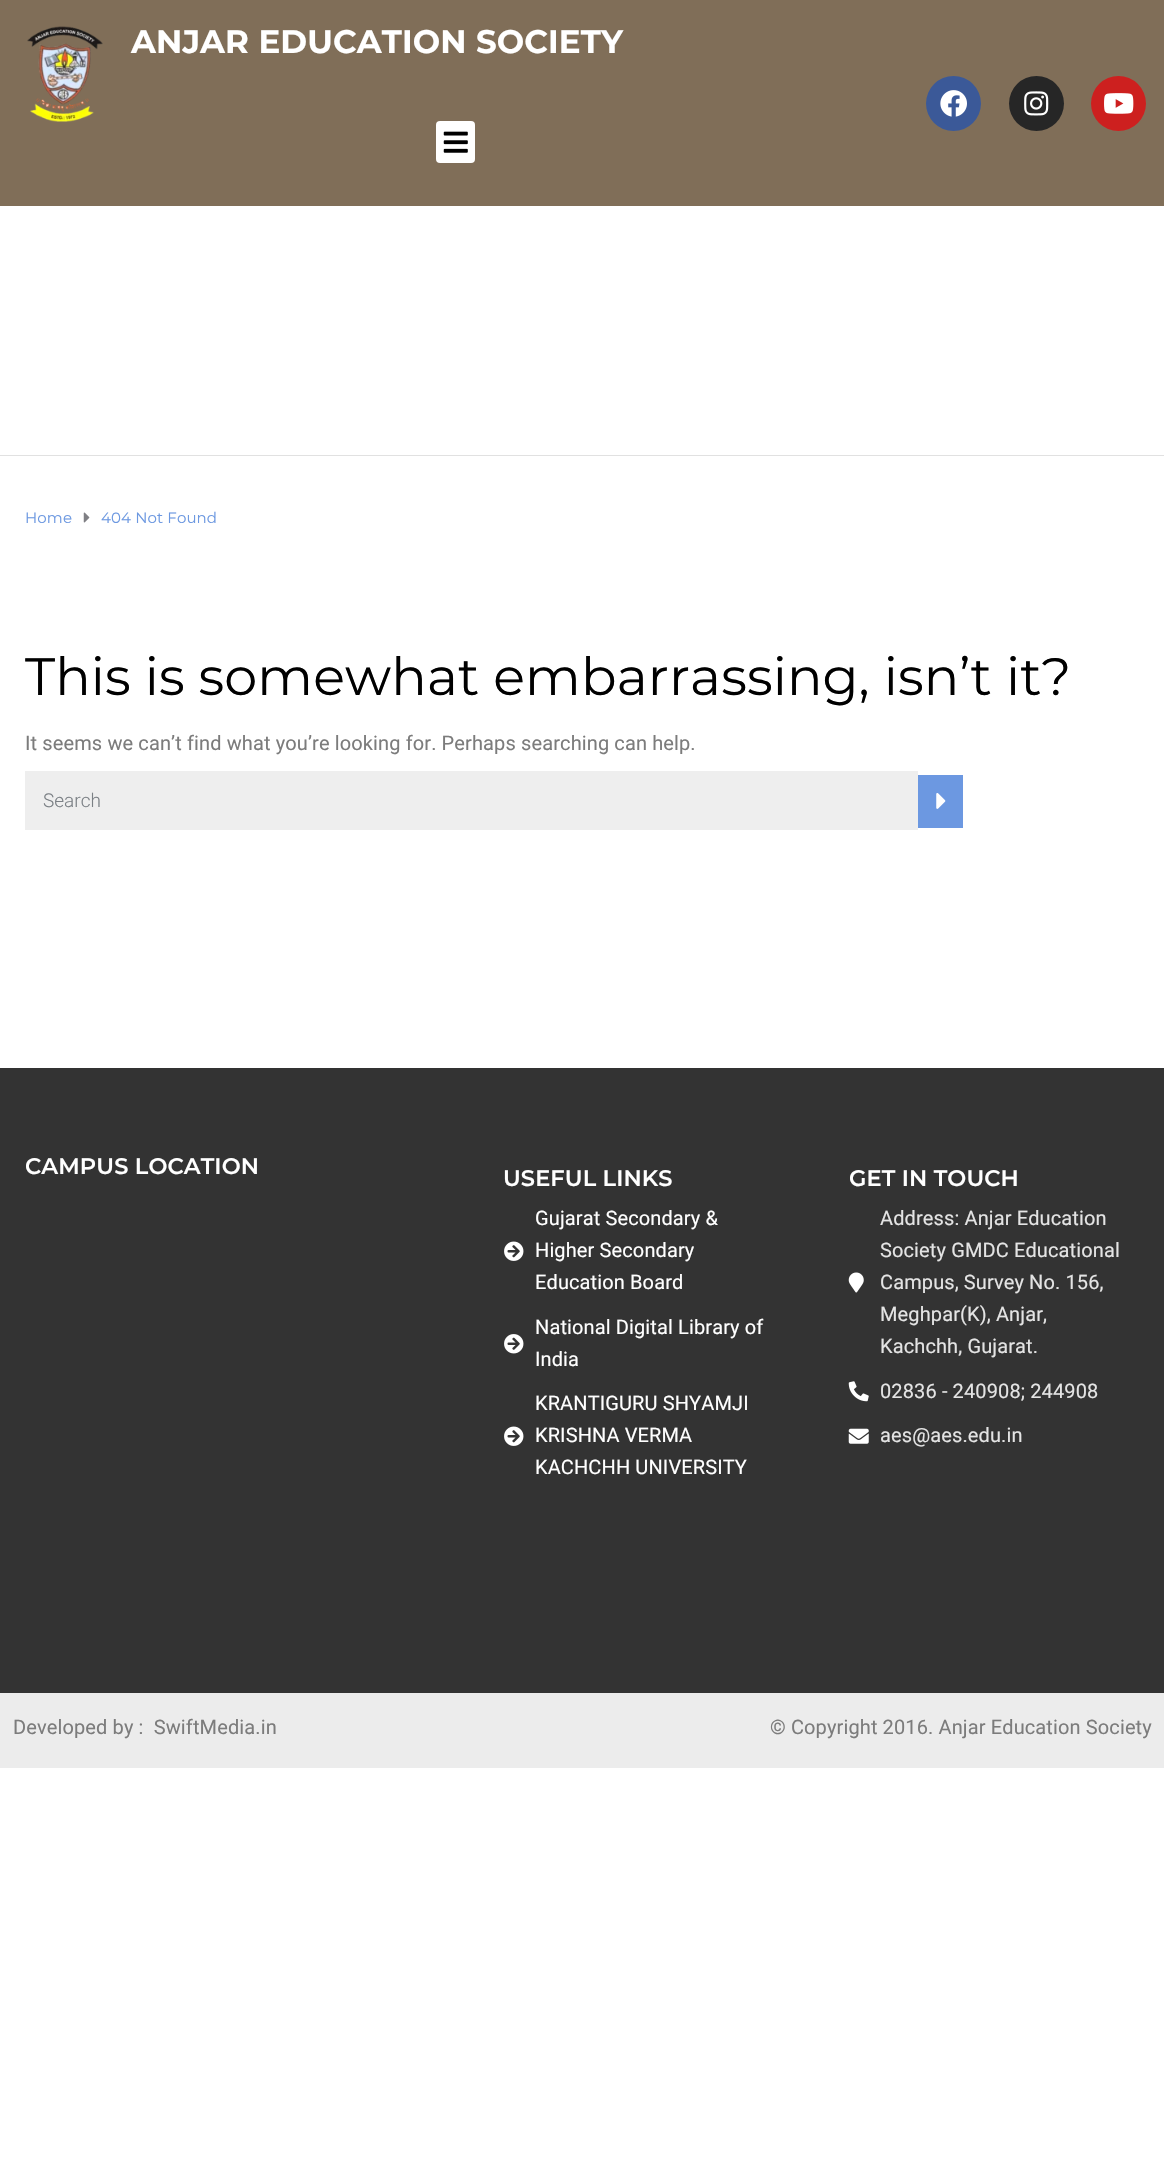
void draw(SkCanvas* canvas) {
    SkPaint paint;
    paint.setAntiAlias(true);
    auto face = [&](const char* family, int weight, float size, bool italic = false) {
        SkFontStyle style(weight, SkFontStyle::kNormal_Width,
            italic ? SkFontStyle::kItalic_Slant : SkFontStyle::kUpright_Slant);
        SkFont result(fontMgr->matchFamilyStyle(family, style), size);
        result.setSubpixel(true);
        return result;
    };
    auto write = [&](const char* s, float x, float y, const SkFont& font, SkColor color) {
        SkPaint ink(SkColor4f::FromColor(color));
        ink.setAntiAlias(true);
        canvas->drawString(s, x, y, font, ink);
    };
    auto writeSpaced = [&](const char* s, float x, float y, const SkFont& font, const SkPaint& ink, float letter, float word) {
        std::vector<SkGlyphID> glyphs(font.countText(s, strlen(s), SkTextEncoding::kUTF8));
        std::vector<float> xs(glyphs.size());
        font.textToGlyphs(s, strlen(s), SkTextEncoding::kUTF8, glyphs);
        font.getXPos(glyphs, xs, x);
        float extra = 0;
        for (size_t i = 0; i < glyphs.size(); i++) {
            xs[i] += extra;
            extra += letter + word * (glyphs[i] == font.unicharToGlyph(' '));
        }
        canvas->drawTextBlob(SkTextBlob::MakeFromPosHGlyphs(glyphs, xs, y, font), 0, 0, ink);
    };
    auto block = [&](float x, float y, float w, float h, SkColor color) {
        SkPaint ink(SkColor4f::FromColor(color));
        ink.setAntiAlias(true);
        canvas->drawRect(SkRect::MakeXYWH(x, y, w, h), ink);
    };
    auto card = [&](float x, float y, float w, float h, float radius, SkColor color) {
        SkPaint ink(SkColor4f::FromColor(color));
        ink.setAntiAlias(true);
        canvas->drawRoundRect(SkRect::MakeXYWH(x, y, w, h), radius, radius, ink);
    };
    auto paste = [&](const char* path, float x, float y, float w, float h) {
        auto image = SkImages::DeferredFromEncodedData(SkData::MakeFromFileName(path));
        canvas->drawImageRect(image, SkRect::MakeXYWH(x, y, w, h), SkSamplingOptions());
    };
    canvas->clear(SK_ColorWHITE);
    block(0, 0, 1164, 206, SkColorSetRGB(128, 110, 88));
    paste("pic1.png", 27, 26, 76, 96);
    auto kFont1 = face("Montserrat", 700, 32.5f);
    paint.setColor(SK_ColorWHITE);
    writeSpaced("ANJAR EDUCATION SOCIETY", 131, 53, kFont1, paint, 0.12f, 0);
    card(436, 121, 39, 42, 4, SK_ColorWHITE);
    paste("pic2.png", 443, 131, 25, 22);
    paint.setColor(SkColorSetRGB(59, 89, 152));
    canvas->drawCircle(953.5f, 103.5f, 27.5f, paint);
    paste("pic3.png", 940, 90, 27, 27);
    paint.setColor(SkColorSetRGB(38, 38, 38));
    canvas->drawCircle(1036.5f, 103.5f, 27.5f, paint);
    paste("pic4.png", 1024, 91, 25, 25);
    paint.setColor(SkColorSetRGB(205, 32, 31));
    canvas->drawCircle(1118.5f, 103.5f, 27.5f, paint);
    paste("pic5.png", 1104, 93, 30, 21);
    block(0, 455, 1164, 1, SkColorSetRGB(225, 225, 225));
    auto kFont2 = face("Montserrat", 400, 15);
    paint.setColor(SkColorSetRGB(108, 152, 225));
    writeSpaced("Home", 25, 523, kFont2, paint, 0.12f, 0);
    paste("pic6.png", 83, 512, 7, 11);
    writeSpaced("404 Not Found", 101, 523, kFont2, paint, 0.12f, 0);
    auto kFont3 = face("Montserrat", 400, 52.5f);
    paint.setColor(SK_ColorBLACK);
    writeSpaced("This is somewhat embarrassing, isn’t it?", 25, 695, kFont3, paint, 0.12f, 0);
    auto kFont4 = face("Roboto", 400, 20);
    paint.setColor(SkColorSetRGB(124, 124, 124));
    writeSpaced("It seems we can’t find what you’re looking for. Perhaps searching can help.", 25, 750, kFont4, paint, 0.12f, 0);
    block(25, 771, 893, 59, SkColorSetRGB(238, 238, 238));
    auto kFont5 = face("Roboto", 300, 19);
    write("Search", 43, 807, kFont5, SkColorSetRGB(123, 128, 133));
    block(918, 775, 45, 53, SkColorSetRGB(108, 152, 225));
    paste("pic7.png", 936, 793, 10, 16);
    block(0, 1068, 1164, 625, SkColorSetRGB(51, 51, 51));
    auto kFont6 = face("Montserrat", 600, 22.5f);
    paint.setColor(SK_ColorWHITE);
    writeSpaced("CAMPUS LOCATION", 25, 1174, kFont6, paint, 0.12f, 0);
    writeSpaced("USEFUL LINKS", 503, 1186, kFont6, paint, 0.12f, 0);
    paste("pic8.png", 504, 1241, 20, 20);
    writeSpaced("Gujarat Secondary &", 535, 1225, kFont4, paint, 0.12f, 0);
    writeSpaced("Higher Secondary", 535, 1257, kFont4, paint, 0.12f, 0);
    writeSpaced("Education Board", 535, 1289, kFont4, paint, 0.12f, 0);
    paste("pic9.png", 504, 1334, 20, 20);
    writeSpaced("National Digital Library of", 535, 1334, kFont4, paint, 0.12f, 0);
    writeSpaced("India", 535, 1366, kFont4, paint, 0.12f, 0);
    paste("pic8.png", 504, 1426, 20, 20);
    writeSpaced("KRANTIGURU SHYAMJI", 535, 1410, kFont4, paint, 0.12f, 0);
    writeSpaced("KRISHNA VERMA", 535, 1442, kFont4, paint, 0.12f, 0);
    writeSpaced("KACHCHH UNIVERSITY", 535, 1474, kFont4, paint, 0.12f, 0);
    writeSpaced("GET IN TOUCH", 849, 1186, kFont6, paint, 0.12f, 0);
    paste("pic10.png", 848, 1272, 16, 21);
    paint.setColor(SkColorSetRGB(228, 228, 228));
    writeSpaced("Address: Anjar Education", 880, 1225, kFont4, paint, 0.12f, 0);
    writeSpaced("Society GMDC Educational", 880, 1257, kFont4, paint, 0.12f, 0);
    writeSpaced("Campus, Survey No. 156,", 880, 1289, kFont4, paint, 0.12f, 0);
    writeSpaced("Meghpar(K), Anjar,", 880, 1321, kFont4, paint, 0.12f, 0);
    writeSpaced("Kachchh, Gujarat.", 880, 1353, kFont4, paint, 0.12f, 0);
    paste("pic11.png", 848, 1381, 21, 21);
    writeSpaced("02836 - 240908; 244908", 880, 1398, kFont4, paint, 0.12f, 0);
    paste("pic12.png", 848, 1428, 21, 16);
    writeSpaced("aes@aes.edu.in", 880, 1442, kFont4, paint, 0.12f, 0);
    block(0, 1693, 1164, 75, SkColorSetRGB(236, 236, 236));
    paint.setColor(SkColorSetRGB(124, 124, 124));
    writeSpaced("Developed by :  SwiftMedia.in", 13, 1734, kFont4, paint, 0.12f, 0);
    writeSpaced("© Copyright 2016. Anjar Education Society", 770, 1734, kFont4, paint, 0.12f, 0);
}
